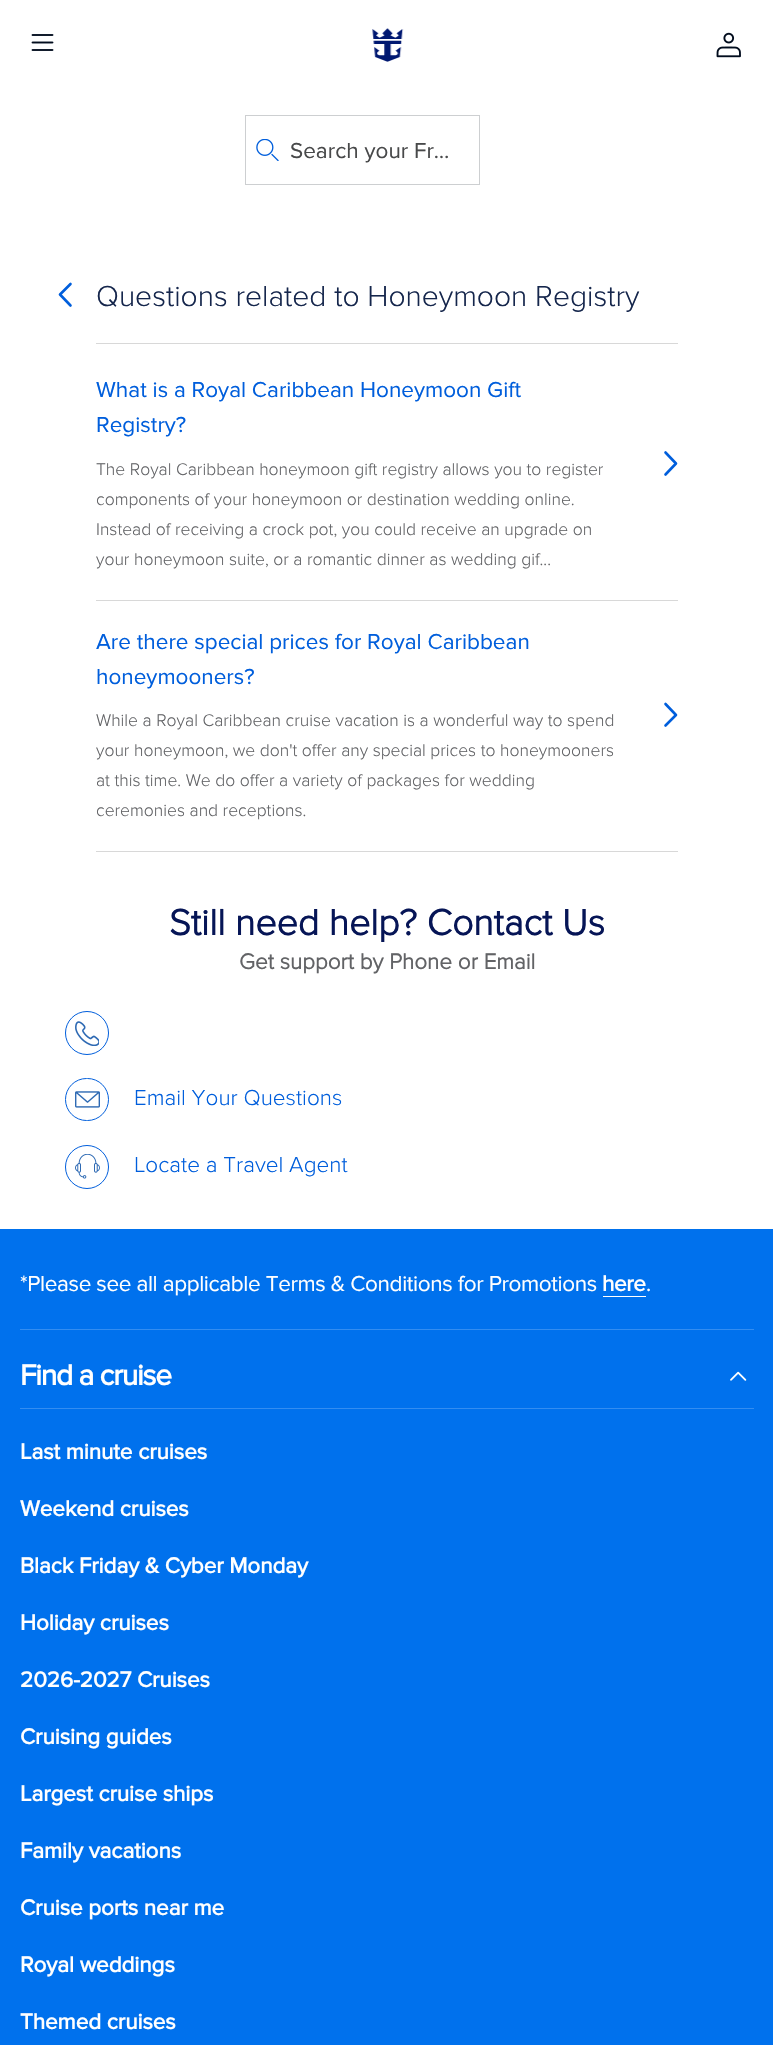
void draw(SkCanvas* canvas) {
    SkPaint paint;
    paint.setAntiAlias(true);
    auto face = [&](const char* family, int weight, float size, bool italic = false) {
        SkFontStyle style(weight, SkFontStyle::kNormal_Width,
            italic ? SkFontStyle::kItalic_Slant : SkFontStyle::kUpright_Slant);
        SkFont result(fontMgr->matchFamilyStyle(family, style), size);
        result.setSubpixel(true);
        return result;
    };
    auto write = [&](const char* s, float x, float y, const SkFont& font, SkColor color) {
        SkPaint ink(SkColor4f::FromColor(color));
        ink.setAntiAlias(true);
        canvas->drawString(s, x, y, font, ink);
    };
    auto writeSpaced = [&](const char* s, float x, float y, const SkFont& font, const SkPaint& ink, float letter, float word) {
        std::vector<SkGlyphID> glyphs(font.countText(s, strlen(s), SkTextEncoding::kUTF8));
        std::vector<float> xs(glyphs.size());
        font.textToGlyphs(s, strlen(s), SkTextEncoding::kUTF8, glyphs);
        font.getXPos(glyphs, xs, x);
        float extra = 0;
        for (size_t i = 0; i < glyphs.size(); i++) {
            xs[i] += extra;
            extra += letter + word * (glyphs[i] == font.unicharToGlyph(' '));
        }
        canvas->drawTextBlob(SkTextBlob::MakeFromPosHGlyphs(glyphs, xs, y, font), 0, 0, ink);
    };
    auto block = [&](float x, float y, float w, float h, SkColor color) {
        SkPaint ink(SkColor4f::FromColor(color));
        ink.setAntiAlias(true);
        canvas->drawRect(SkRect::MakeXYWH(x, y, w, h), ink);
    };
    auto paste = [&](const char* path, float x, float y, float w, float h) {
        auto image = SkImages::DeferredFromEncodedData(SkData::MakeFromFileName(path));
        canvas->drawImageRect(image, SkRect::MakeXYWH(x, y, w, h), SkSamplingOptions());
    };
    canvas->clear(SK_ColorWHITE);
    paste("pic1.png", 31, 34, 23, 17);
    paste("pic2.png", 372, 28, 32, 34);
    paste("pic3.png", 716, 32, 25, 26);
    paint.setStyle(SkPaint::kStroke_Style);
    paint.setStrokeWidth(1);
    paint.setColor(SkColorSetRGB(205, 207, 209));
    canvas->drawRect(SkRect::MakeXYWH(245.5f, 115.5f, 234, 69), paint);
    paste("pic4.png", 256, 139, 23, 22);
    auto kFont1 = face("Proxima Nova", 400, 22.5f);
    write("Search your Fr…", 290, 158, kFont1, SkColorSetRGB(72, 73, 74));
    paint.setStrokeWidth(2.6f);
    paint.setStrokeCap(SkPaint::kRound_Cap);
    paint.setStrokeJoin(SkPaint::kRound_Join);
    paint.setColor(SkColorSetRGB(0, 94, 220));
    canvas->drawPath(SkPathBuilder().moveTo(70.5f, 284).lineTo(60, 294.5f).lineTo(70.5f, 305.5f).detach(), paint);
    block(96, 343, 582, 1, SkColorSetRGB(216, 216, 216));
    auto kFont2 = face("Proxima Nova", 300, 30);
    write("Questions related to Honeymoon Registry", 96, 306, kFont2, SkColorSetRGB(21, 38, 76));
    block(96, 600, 582, 1, SkColorSetRGB(216, 216, 216));
    write("What is a Royal Caribbean Honeymoon Gift", 96, 397, kFont1, SkColorSetRGB(0, 94, 220));
    write("Registry?", 96, 432, kFont1, SkColorSetRGB(0, 94, 220));
    auto kFont3 = face("Proxima Nova", 300, 17.5f);
    write("The Royal Caribbean honeymoon gift registry allows you to register", 96, 475, kFont3, SkColorSetRGB(98, 99, 102));
    write("components of your honeymoon or destination wedding online.", 96, 505, kFont3, SkColorSetRGB(98, 99, 102));
    write("Instead of receiving a crock pot, you could receive an upgrade on", 96, 535, kFont3, SkColorSetRGB(98, 99, 102));
    write("your honeymoon suite, or a romantic dinner as wedding gif...", 96, 565, kFont3, SkColorSetRGB(98, 99, 102));
    canvas->drawPath(SkPathBuilder().moveTo(665.5f, 474.5f).lineTo(676, 463.5f).lineTo(665.5f, 452.5f).detach(), paint);
    block(96, 851, 582, 1, SkColorSetRGB(216, 216, 216));
    write("Are there special prices for Royal Caribbean", 96, 649, kFont1, SkColorSetRGB(0, 94, 220));
    write("honeymooners?", 96, 684, kFont1, SkColorSetRGB(0, 94, 220));
    write("While a Royal Caribbean cruise vacation is a wonderful way to spend", 96, 726, kFont3, SkColorSetRGB(98, 99, 102));
    write("your honeymoon, we don't offer any special prices to honeymooners", 96, 756, kFont3, SkColorSetRGB(98, 99, 102));
    write("at this time. We do offer a variety of packages for wedding", 96, 786, kFont3, SkColorSetRGB(98, 99, 102));
    write("ceremonies and receptions.", 96, 816, kFont3, SkColorSetRGB(98, 99, 102));
    canvas->drawPath(SkPathBuilder().moveTo(665.5f, 725.5f).lineTo(676, 715).lineTo(665.5f, 704).detach(), paint);
    auto kFont4 = face("Proxima Nova", 700, 37.5f);
    write("Still need help? Contact Us", 169, 935, kFont4, SkColorSetRGB(6, 21, 86));
    auto kFont5 = face("Proxima Nova", 700, 22.5f);
    write("Get support by Phone or Email", 239, 969, kFont5, SkColorSetRGB(98, 99, 102));
    paint.setStrokeWidth(1);
    paint.setStrokeCap(SkPaint::kButt_Cap);
    paint.setStrokeJoin(SkPaint::kMiter_Join);
    canvas->drawCircle(87, 1033, 21.5f, paint);
    paste("pic5.png", 75, 1021, 24, 25);
    canvas->drawRoundRect(SkRect::MakeXYWH(65.5f, 1078.5f, 43, 42), 21, 21, paint);
    paste("pic6.png", 75, 1091, 25, 17);
    auto kFont6 = face("Proxima Nova", 300, 22.5f);
    write("Email Your Questions", 134, 1105, kFont6, SkColorSetRGB(0, 94, 220));
    canvas->drawCircle(87, 1167, 21.5f, paint);
    paste("pic7.png", 75, 1154, 25, 25);
    write("Locate a Travel Agent", 134, 1172, kFont6, SkColorSetRGB(0, 94, 220));
    block(0, 1229, 773, 816, SkColorSetRGB(0, 113, 237));
    block(20, 1329, 734, 1, SkColorSetRGB(51, 141, 241));
    paint.setStyle(SkPaint::kFill_Style);
    paint.setColor(SK_ColorWHITE);
    writeSpaced("*Please see all applicable Terms & Conditions for Promotions", 20, 1291, kFont1, paint, -0.38f, 0);
    auto kFont7 = face("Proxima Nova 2", 700, 22.5f);
    writeSpaced("here", 602, 1291, kFont7, paint, -0.38f, 0);
    block(603, 1296, 43, 1, SK_ColorWHITE);
    writeSpaced(".", 646, 1291, kFont1, paint, -0.38f, 0);
    block(20, 1408, 734, 1, SkColorSetRGB(51, 141, 241));
    auto kFont8 = face("Proxima Nova 2", 700, 30);
    writeSpaced("Find a cruise", 20, 1385, kFont8, paint, -1.25f, 0);
    paste("pic8.png", 730, 1371, 17, 10);
    writeSpaced("Last minute cruises", 20, 1459, kFont7, paint, -0.1f, 0);
    writeSpaced("Weekend cruises", 20, 1516, kFont7, paint, -0.1f, 0);
    writeSpaced("Black Friday & Cyber Monday", 20, 1573, kFont7, paint, -0.1f, 0);
    writeSpaced("Holiday cruises", 20, 1630, kFont7, paint, -0.1f, 0);
    writeSpaced("2026-2027 Cruises", 20, 1687, kFont7, paint, -0.1f, 0);
    writeSpaced("Cruising guides", 20, 1744, kFont7, paint, -0.1f, 0);
    writeSpaced("Largest cruise ships", 20, 1801, kFont7, paint, -0.1f, 0);
    writeSpaced("Family vacations", 20, 1858, kFont7, paint, -0.1f, 0);
    writeSpaced("Cruise ports near me", 20, 1915, kFont7, paint, -0.1f, 0);
    writeSpaced("Royal weddings", 20, 1972, kFont7, paint, -0.1f, 0);
    writeSpaced("Themed cruises", 20, 2029, kFont7, paint, -0.1f, 0);
}
